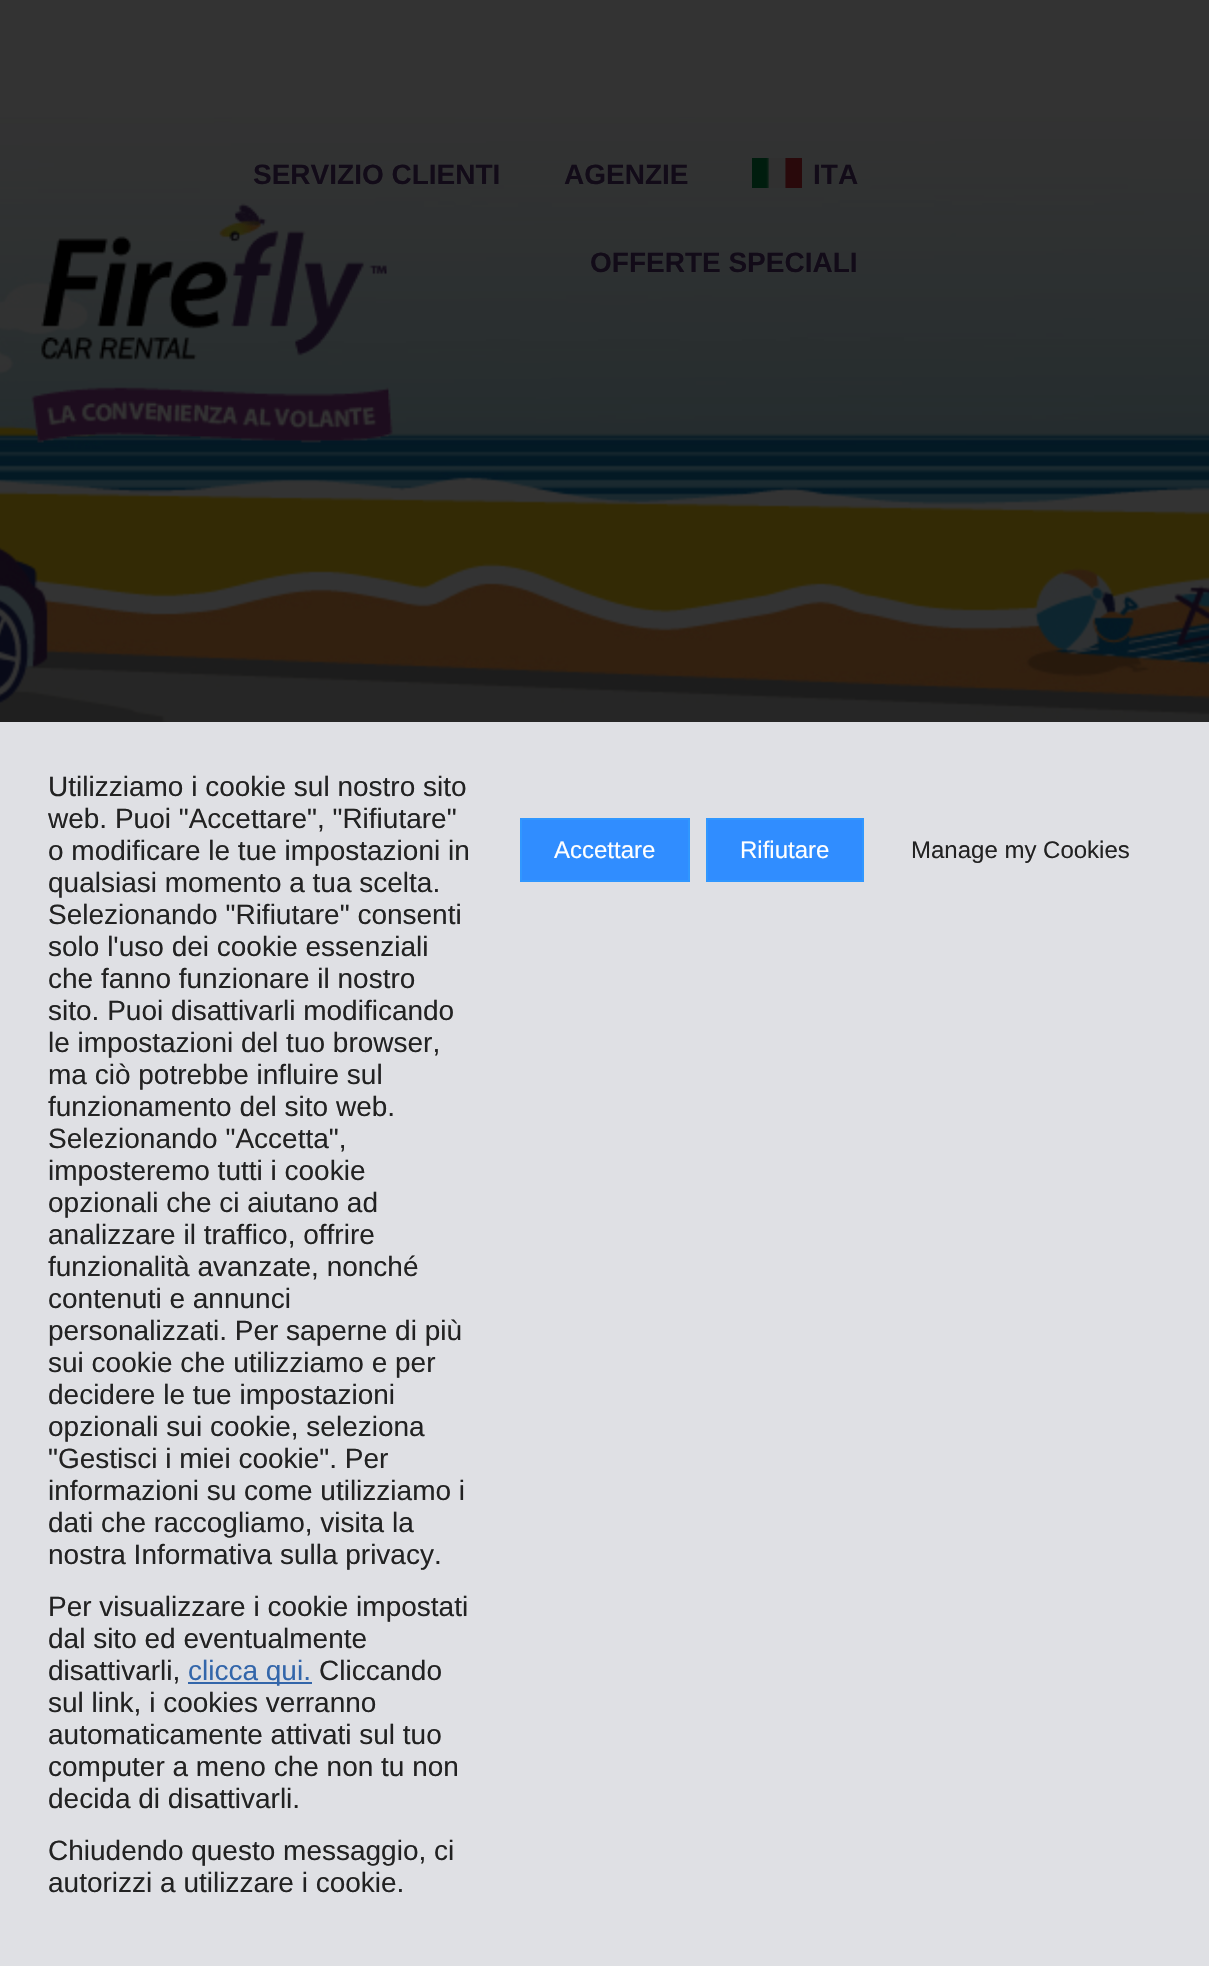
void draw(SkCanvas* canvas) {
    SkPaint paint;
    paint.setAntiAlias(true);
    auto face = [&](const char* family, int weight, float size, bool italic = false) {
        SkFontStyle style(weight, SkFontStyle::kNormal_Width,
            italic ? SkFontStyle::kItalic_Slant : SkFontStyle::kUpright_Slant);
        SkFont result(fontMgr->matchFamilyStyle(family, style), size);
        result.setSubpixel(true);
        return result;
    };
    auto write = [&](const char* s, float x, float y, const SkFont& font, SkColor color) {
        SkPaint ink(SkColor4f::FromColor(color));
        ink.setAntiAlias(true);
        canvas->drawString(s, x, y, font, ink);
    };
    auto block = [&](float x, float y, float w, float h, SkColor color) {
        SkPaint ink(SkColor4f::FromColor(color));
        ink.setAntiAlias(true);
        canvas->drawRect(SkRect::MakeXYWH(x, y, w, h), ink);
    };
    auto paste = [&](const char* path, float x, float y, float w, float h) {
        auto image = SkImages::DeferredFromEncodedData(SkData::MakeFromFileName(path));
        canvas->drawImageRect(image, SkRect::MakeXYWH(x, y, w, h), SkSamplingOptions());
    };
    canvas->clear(SkColorSetRGB(51, 51, 51));
    paste("pic2.png", 0, 117, 1209, 605);
    paste("pic1.png", 31, 203, 362, 240);
    auto kFont1 = face("Liberation Sans", 700, 28);
    write("SERVIZIO CLIENTI", 253, 184, kFont1, SkColorSetRGB(18, 11, 24));
    write("AGENZIE", 564, 184, kFont1, SkColorSetRGB(18, 11, 24));
    paste("pic3.png", 752, 158, 50, 30);
    write("ITA", 813, 184, kFont1, SkColorSetRGB(18, 11, 24));
    write("OFFERTE SPECIALI", 590, 272, kFont1, SkColorSetRGB(18, 11, 24));
    block(0, 722, 1209, 1244, SkColorSetRGB(223, 224, 228));
    auto kFont2 = face("Liberation Sans", 400, 28);
    write("Utilizziamo i cookie sul nostro sito", 48, 796, kFont2, SkColorSetRGB(34, 34, 34));
    write("web. Puoi \"Accettare\", \"Rifiutare\"", 48, 828, kFont2, SkColorSetRGB(34, 34, 34));
    write("o modificare le tue impostazioni in", 48, 860, kFont2, SkColorSetRGB(34, 34, 34));
    write("qualsiasi momento a tua scelta.", 48, 892, kFont2, SkColorSetRGB(34, 34, 34));
    write("Selezionando \"Rifiutare\" consenti", 48, 924, kFont2, SkColorSetRGB(34, 34, 34));
    write("solo l'uso dei cookie essenziali", 48, 956, kFont2, SkColorSetRGB(34, 34, 34));
    write("che fanno funzionare il nostro", 48, 988, kFont2, SkColorSetRGB(34, 34, 34));
    write("sito. Puoi disattivarli modificando", 48, 1020, kFont2, SkColorSetRGB(34, 34, 34));
    write("le impostazioni del tuo browser,", 48, 1052, kFont2, SkColorSetRGB(34, 34, 34));
    write("ma ciò potrebbe influire sul", 48, 1084, kFont2, SkColorSetRGB(34, 34, 34));
    write("funzionamento del sito web.", 48, 1116, kFont2, SkColorSetRGB(34, 34, 34));
    write("Selezionando \"Accetta\",", 48, 1148, kFont2, SkColorSetRGB(34, 34, 34));
    write("imposteremo tutti i cookie", 48, 1180, kFont2, SkColorSetRGB(34, 34, 34));
    write("opzionali che ci aiutano ad", 48, 1212, kFont2, SkColorSetRGB(34, 34, 34));
    write("analizzare il traffico, offrire", 48, 1244, kFont2, SkColorSetRGB(34, 34, 34));
    write("funzionalità avanzate, nonché", 48, 1276, kFont2, SkColorSetRGB(34, 34, 34));
    write("contenuti e annunci", 48, 1308, kFont2, SkColorSetRGB(34, 34, 34));
    write("personalizzati. Per saperne di più", 48, 1340, kFont2, SkColorSetRGB(34, 34, 34));
    write("sui cookie che utilizziamo e per", 48, 1372, kFont2, SkColorSetRGB(34, 34, 34));
    write("decidere le tue impostazioni", 48, 1404, kFont2, SkColorSetRGB(34, 34, 34));
    write("opzionali sui cookie, seleziona", 48, 1436, kFont2, SkColorSetRGB(34, 34, 34));
    write("\"Gestisci i miei cookie\". Per", 48, 1468, kFont2, SkColorSetRGB(34, 34, 34));
    write("informazioni su come utilizziamo i", 48, 1500, kFont2, SkColorSetRGB(34, 34, 34));
    write("dati che raccogliamo, visita la", 48, 1532, kFont2, SkColorSetRGB(34, 34, 34));
    write("nostra Informativa sulla privacy.", 48, 1564, kFont2, SkColorSetRGB(34, 34, 34));
    write("Per visualizzare i cookie impostati", 48, 1616, kFont2, SkColorSetRGB(34, 34, 34));
    write("dal sito ed eventualmente", 48, 1648, kFont2, SkColorSetRGB(34, 34, 34));
    write("disattivarli,", 48, 1680, kFont2, SkColorSetRGB(34, 34, 34));
    block(188, 1682, 124, 2, SkColorSetRGB(51, 102, 170));
    write("clicca qui.", 188, 1680, kFont2, SkColorSetRGB(51, 102, 170));
    write("Cliccando", 319, 1680, kFont2, SkColorSetRGB(34, 34, 34));
    write("sul link, i cookies verranno", 48, 1712, kFont2, SkColorSetRGB(34, 34, 34));
    write("automaticamente attivati sul tuo", 48, 1744, kFont2, SkColorSetRGB(34, 34, 34));
    write("computer a meno che non tu non", 48, 1776, kFont2, SkColorSetRGB(34, 34, 34));
    write("decida di disattivarli.", 48, 1808, kFont2, SkColorSetRGB(34, 34, 34));
    write("Chiudendo questo messaggio, ci", 48, 1860, kFont2, SkColorSetRGB(34, 34, 34));
    write("autorizzi a utilizzare i cookie.", 48, 1892, kFont2, SkColorSetRGB(34, 34, 34));
    paint.setColor(SkColorSetRGB(48, 141, 255));
    canvas->drawRect(SkRect::MakeXYWH(521, 819, 168, 62), paint);
    paint.setStyle(SkPaint::kStroke_Style);
    paint.setStrokeWidth(2);
    paint.setColor(SkColorSetRGB(48, 151, 255));
    canvas->drawRect(SkRect::MakeXYWH(521, 819, 168, 62), paint);
    auto kFont3 = face("Liberation Sans", 400, 24);
    write("Accettare", 554, 858, kFont3, SK_ColorWHITE);
    paint.setStyle(SkPaint::kFill_Style);
    paint.setColor(SkColorSetRGB(48, 141, 255));
    canvas->drawRect(SkRect::MakeXYWH(707, 819, 156, 62), paint);
    paint.setStyle(SkPaint::kStroke_Style);
    paint.setColor(SkColorSetRGB(48, 151, 255));
    canvas->drawRect(SkRect::MakeXYWH(707, 819, 156, 62), paint);
    write("Rifiutare", 740, 858, kFont3, SK_ColorWHITE);
    write("Manage my Cookies", 911, 858, kFont3, SkColorSetRGB(34, 34, 34));
}
